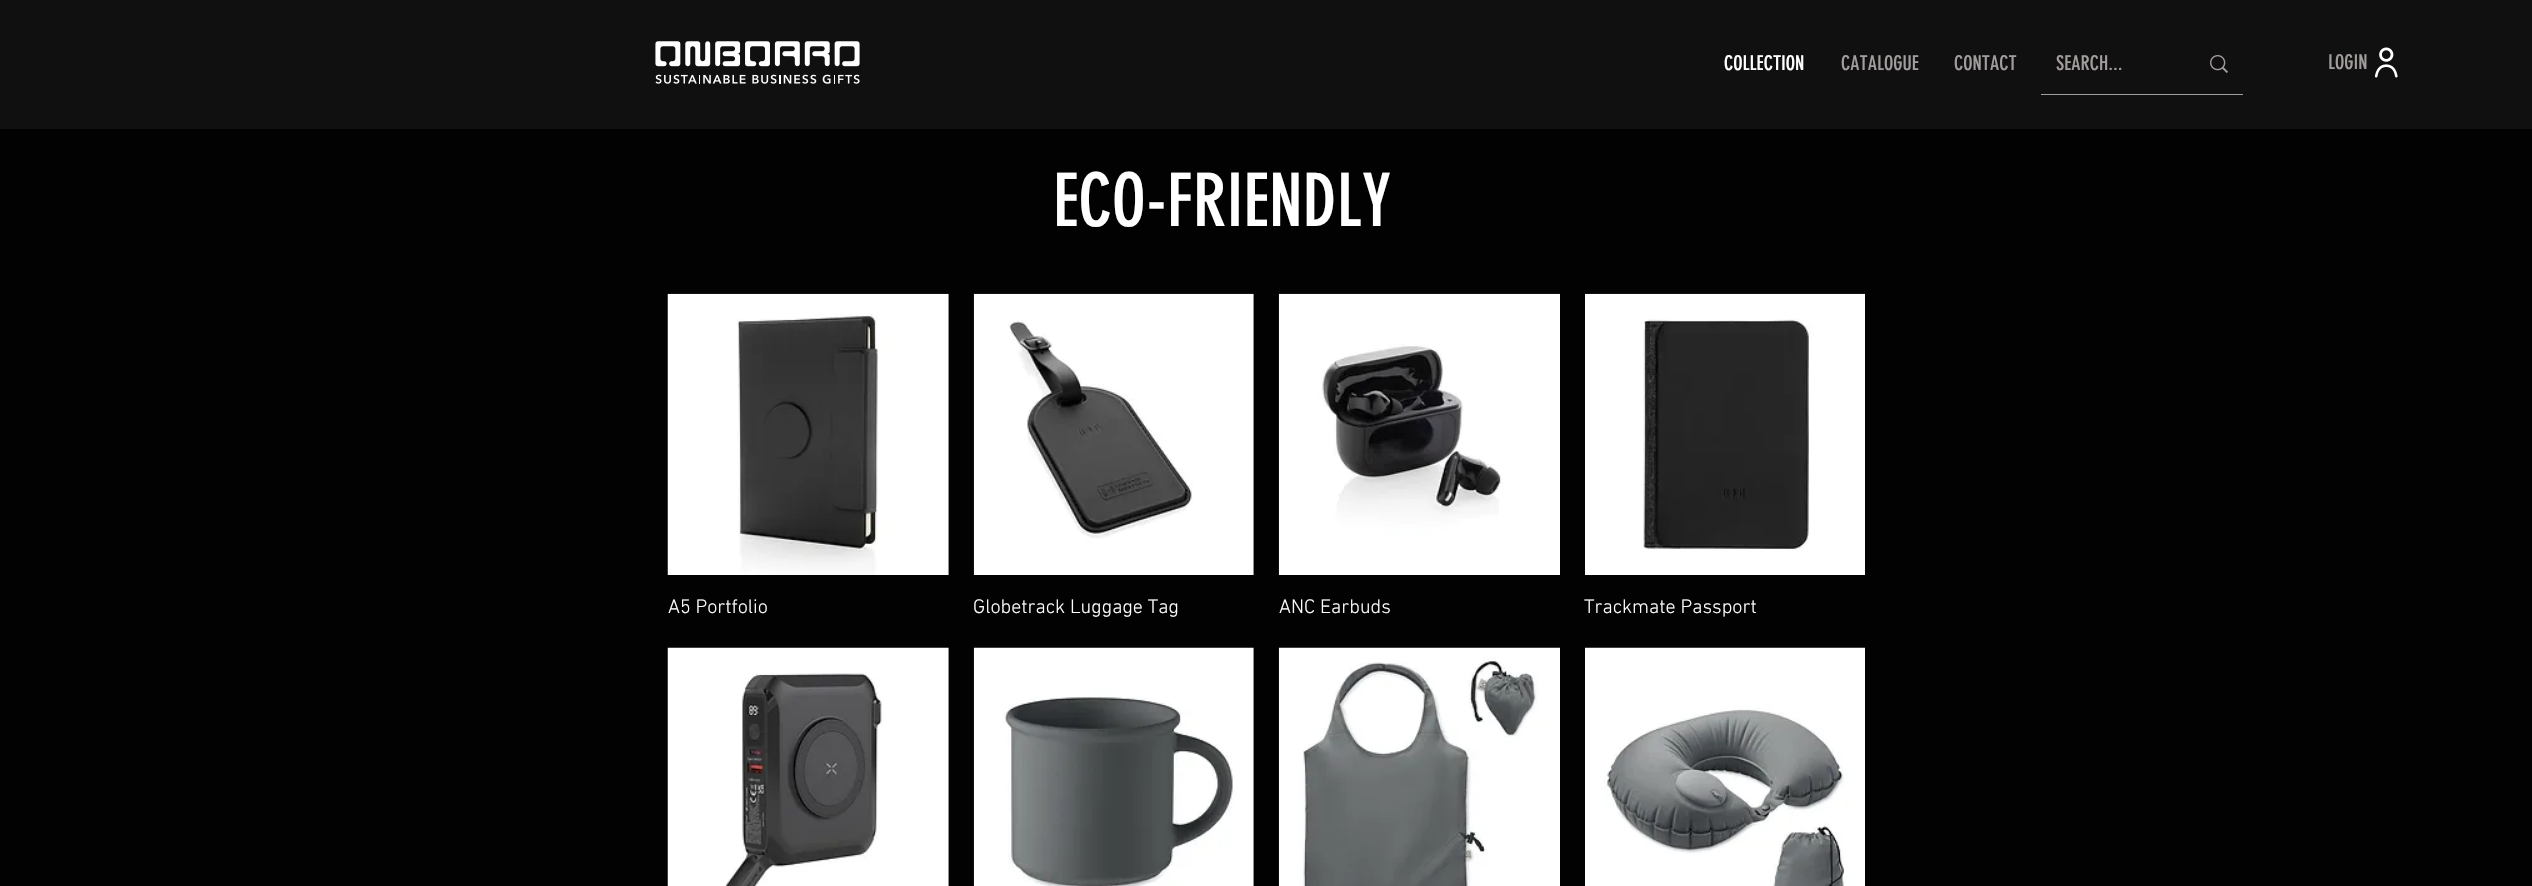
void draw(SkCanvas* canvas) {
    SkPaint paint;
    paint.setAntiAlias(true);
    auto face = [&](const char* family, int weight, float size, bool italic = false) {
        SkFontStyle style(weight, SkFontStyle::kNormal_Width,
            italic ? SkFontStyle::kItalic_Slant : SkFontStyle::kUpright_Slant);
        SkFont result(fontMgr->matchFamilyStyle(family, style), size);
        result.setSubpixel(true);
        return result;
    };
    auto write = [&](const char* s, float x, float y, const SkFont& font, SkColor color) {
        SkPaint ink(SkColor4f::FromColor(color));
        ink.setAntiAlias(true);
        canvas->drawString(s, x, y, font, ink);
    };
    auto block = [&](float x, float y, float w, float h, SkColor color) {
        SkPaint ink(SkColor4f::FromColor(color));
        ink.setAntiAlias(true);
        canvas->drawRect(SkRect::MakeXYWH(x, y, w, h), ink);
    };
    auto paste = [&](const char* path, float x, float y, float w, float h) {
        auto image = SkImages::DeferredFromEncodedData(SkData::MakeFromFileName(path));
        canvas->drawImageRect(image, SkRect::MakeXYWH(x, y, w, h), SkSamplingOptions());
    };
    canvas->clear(SkColorSetRGB(2, 2, 2));
    block(0, 0, 2532, 129, SkColorSetRGB(16, 16, 16));
    paste("pic1.png", 655, 41, 205, 43);
    auto kFont1 = face("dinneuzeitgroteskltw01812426", 400, 20);
    write("COLLECTION", 1724, 70, kFont1, SK_ColorWHITE);
    write("CATALOGUE", 1841, 70, kFont1, SkColorSetRGB(162, 156, 156));
    write("CONTACT", 1954, 70, kFont1, SkColorSetRGB(162, 156, 156));
    block(2041, 94, 202, 1, SkColorSetRGB(162, 156, 156));
    write("SEARCH...", 2056, 70, kFont1, SkColorSetRGB(162, 156, 156));
    paste("pic2.png", 2210, 55, 18, 18);
    write("LOGIN", 2328, 69, kFont1, SkColorSetRGB(162, 156, 156));
    paste("pic3.png", 2374, 47, 24, 31);
    auto kFont2 = face("dinneuzeitgroteskltw01812426", 400, 72.5f);
    write("ECO-FRIENDLY", 1053, 226, kFont2, SK_ColorWHITE);
    paste("pic4.png", 667, 293, 282, 282);
    auto kFont3 = face("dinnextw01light", 300, 20);
    write("A5 Portfolio", 668, 613, kFont3, SK_ColorWHITE);
    paste("pic5.png", 973, 293, 281, 282);
    write("Globetrack Luggage Tag", 973, 613, kFont3, SK_ColorWHITE);
    paste("pic6.png", 1278, 293, 282, 282);
    write("ANC Earbuds", 1279, 613, kFont3, SK_ColorWHITE);
    paste("pic7.png", 1585, 293, 280, 282);
    write("Trackmate Passport", 1584, 613, kFont3, SK_ColorWHITE);
    paste("pic8.png", 667, 647, 282, 239);
    paste("pic9.png", 973, 647, 281, 239);
    paste("pic10.png", 1278, 647, 282, 239);
    paste("pic11.png", 1585, 647, 280, 239);
}
